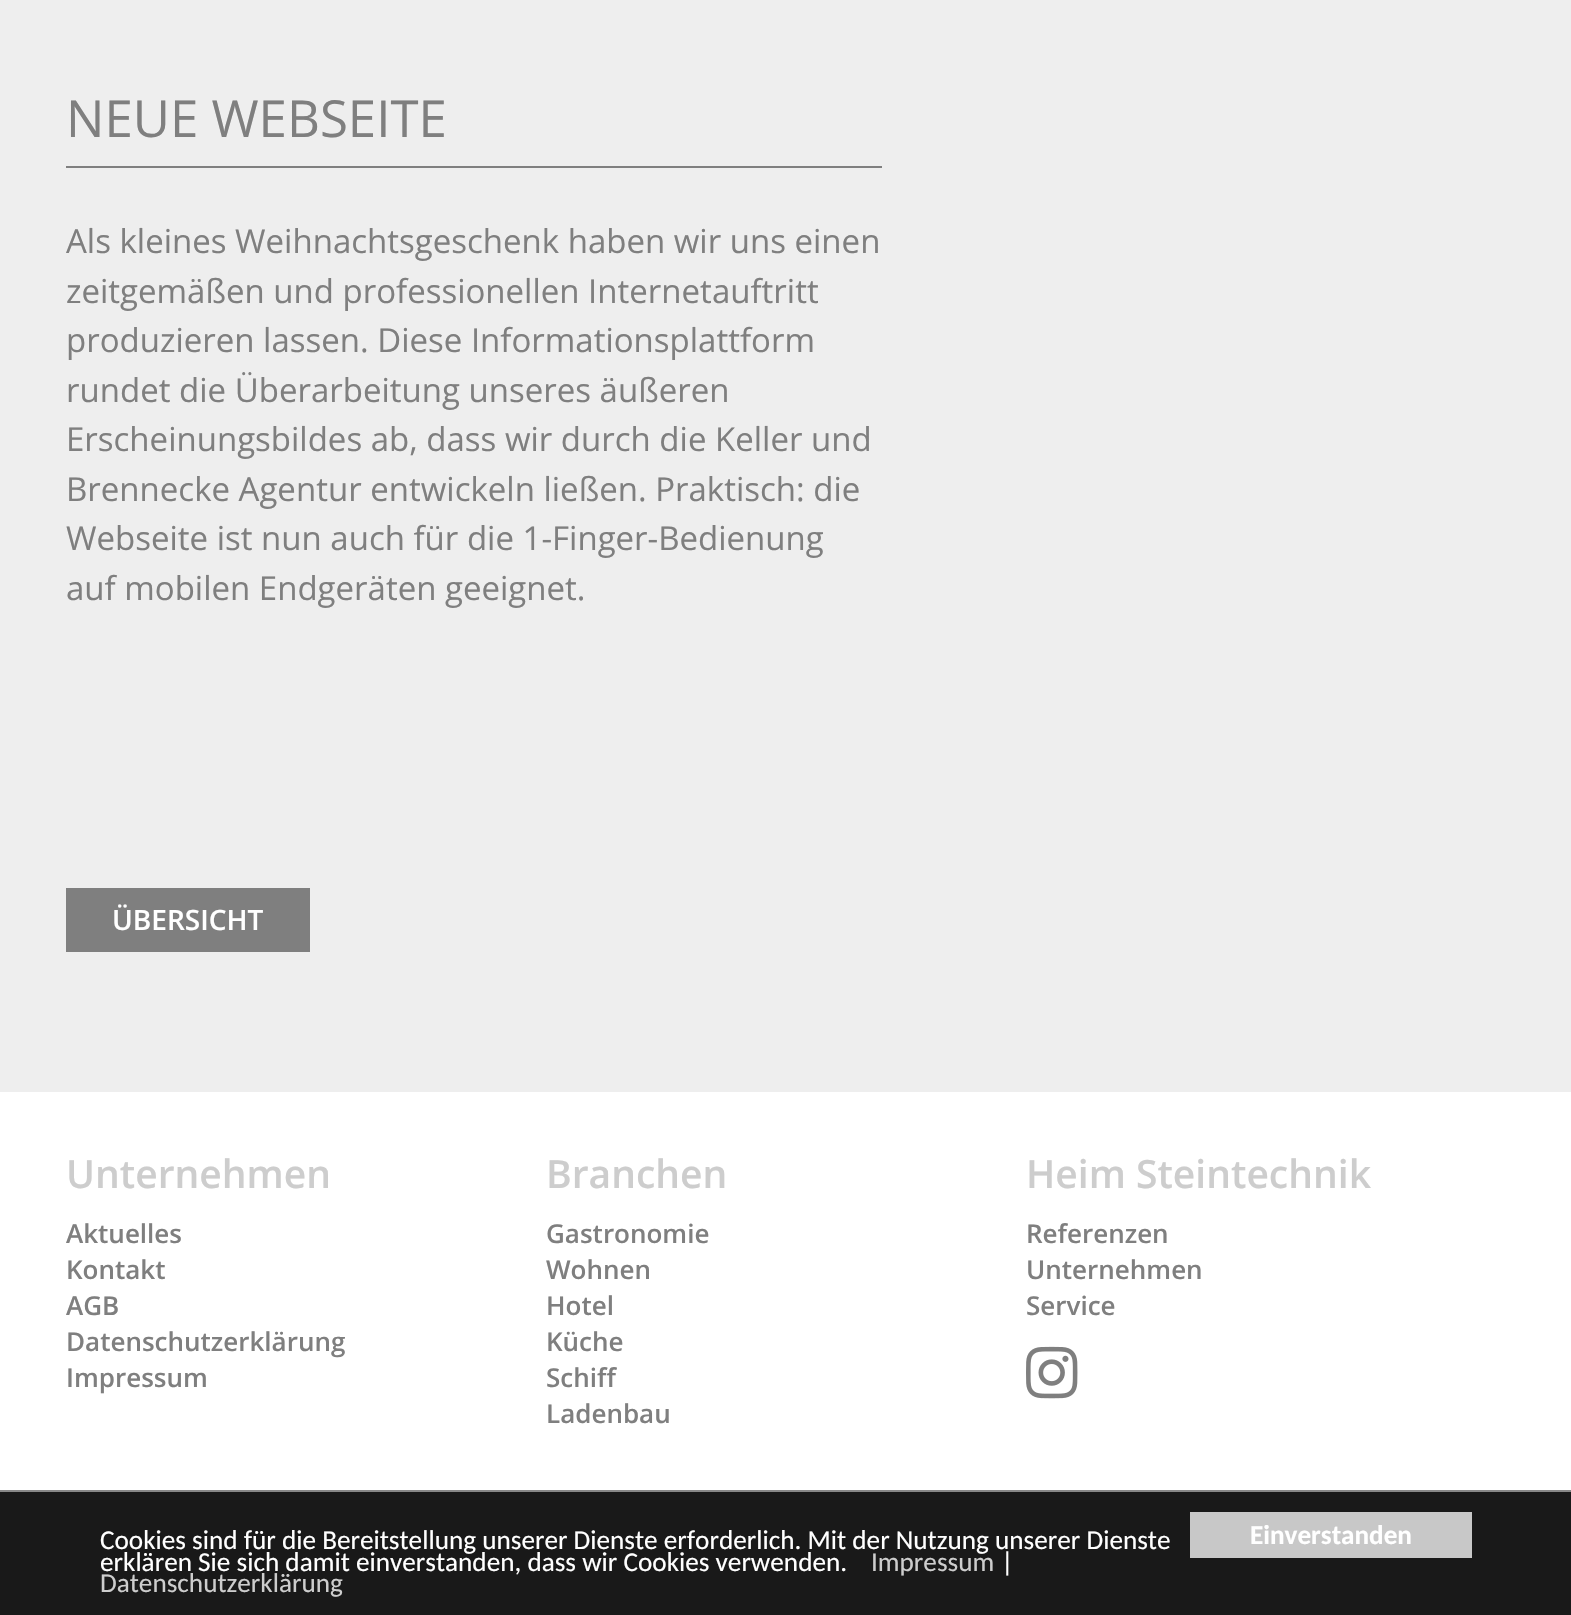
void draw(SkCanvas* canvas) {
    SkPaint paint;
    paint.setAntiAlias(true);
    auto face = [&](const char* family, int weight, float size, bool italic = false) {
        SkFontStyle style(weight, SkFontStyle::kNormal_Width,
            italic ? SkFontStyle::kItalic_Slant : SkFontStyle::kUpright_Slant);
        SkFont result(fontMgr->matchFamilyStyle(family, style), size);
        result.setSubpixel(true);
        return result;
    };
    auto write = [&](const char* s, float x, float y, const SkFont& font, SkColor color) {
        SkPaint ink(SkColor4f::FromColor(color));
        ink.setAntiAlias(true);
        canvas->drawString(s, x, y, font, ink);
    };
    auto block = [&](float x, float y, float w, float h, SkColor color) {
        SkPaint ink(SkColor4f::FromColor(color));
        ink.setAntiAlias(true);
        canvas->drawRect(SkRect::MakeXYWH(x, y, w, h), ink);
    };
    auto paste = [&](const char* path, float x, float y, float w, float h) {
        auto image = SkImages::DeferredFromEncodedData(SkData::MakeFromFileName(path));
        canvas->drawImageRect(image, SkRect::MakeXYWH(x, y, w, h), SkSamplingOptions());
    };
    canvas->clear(SK_ColorWHITE);
    block(0, 1492, 1571, 123, SkColorSetRGB(25, 25, 25));
    block(0, 0, 1571, 1092, SkColorSetRGB(238, 238, 238));
    block(66, 166, 816, 2, SkColorSetRGB(127, 127, 127));
    auto kFont1 = face("Open Sans", 400, 51);
    write("NEUE WEBSEITE", 66, 137, kFont1, SkColorSetRGB(127, 127, 127));
    auto kFont2 = face("Open Sans", 400, 33);
    write("Als kleines Weihnachtsgeschenk haben wir uns einen", 66, 253, kFont2, SkColorSetRGB(127, 127, 127));
    write("zeitgemäßen und professionellen Internetauftritt", 66, 303, kFont2, SkColorSetRGB(127, 127, 127));
    write("produzieren lassen. Diese Informationsplattform", 66, 352, kFont2, SkColorSetRGB(127, 127, 127));
    write("rundet die Überarbeitung unseres äußeren", 66, 402, kFont2, SkColorSetRGB(127, 127, 127));
    write("Erscheinungsbildes ab, dass wir durch die Keller und", 66, 451, kFont2, SkColorSetRGB(127, 127, 127));
    write("Brennecke Agentur entwickeln ließen. Praktisch: die", 66, 501, kFont2, SkColorSetRGB(127, 127, 127));
    write("Webseite ist nun auch für die 1-Finger-Bedienung", 66, 550, kFont2, SkColorSetRGB(127, 127, 127));
    write("auf mobilen Endgeräten geeignet.", 66, 600, kFont2, SkColorSetRGB(127, 127, 127));
    block(66, 888, 244, 64, SkColorSetRGB(127, 127, 127));
    auto kFont3 = face("Open Sans", 600, 28);
    write("ÜBERSICHT", 112, 930, kFont3, SK_ColorWHITE);
    auto kFont4 = face("Open Sans", 600, 39);
    write("Unternehmen", 66, 1188, kFont4, SkColorSetRGB(205, 205, 205));
    auto kFont5 = face("Open Sans", 600, 26);
    write("Aktuelles", 66, 1243, kFont5, SkColorSetRGB(127, 127, 127));
    write("Kontakt", 66, 1279, kFont5, SkColorSetRGB(127, 127, 127));
    write("AGB", 66, 1315, kFont5, SkColorSetRGB(127, 127, 127));
    write("Datenschutzerklärung", 66, 1351, kFont5, SkColorSetRGB(127, 127, 127));
    write("Impressum", 66, 1387, kFont5, SkColorSetRGB(127, 127, 127));
    write("Branchen", 546, 1188, kFont4, SkColorSetRGB(205, 205, 205));
    write("Gastronomie", 546, 1243, kFont5, SkColorSetRGB(127, 127, 127));
    write("Wohnen", 546, 1279, kFont5, SkColorSetRGB(127, 127, 127));
    write("Hotel", 546, 1315, kFont5, SkColorSetRGB(127, 127, 127));
    write("Küche", 546, 1351, kFont5, SkColorSetRGB(127, 127, 127));
    write("Schiff", 546, 1387, kFont5, SkColorSetRGB(127, 127, 127));
    write("Ladenbau", 546, 1423, kFont5, SkColorSetRGB(127, 127, 127));
    write("Heim Steintechnik", 1026, 1188, kFont4, SkColorSetRGB(205, 205, 205));
    write("Referenzen", 1026, 1243, kFont5, SkColorSetRGB(127, 127, 127));
    write("Unternehmen", 1026, 1279, kFont5, SkColorSetRGB(127, 127, 127));
    write("Service", 1026, 1315, kFont5, SkColorSetRGB(127, 127, 127));
    paste("pic1.png", 1026, 1346, 52, 53);
    block(0, 1490, 1571, 2, SkColorSetRGB(136, 136, 136));
    auto kFont6 = face("Carlito", 400, 27.2f);
    write("Cookies sind für die Bereitstellung unserer Dienste erforderlich. Mit der Nutzung unserer Dienste", 100, 1549, kFont6, SK_ColorWHITE);
    write("erklären Sie sich damit einverstanden, dass wir Cookies verwenden.", 100, 1571, kFont6, SK_ColorWHITE);
    write("Impressum", 871, 1571, kFont6, SkColorSetRGB(205, 205, 205));
    write("|", 1001, 1571, kFont6, SK_ColorWHITE);
    write("Datenschutzerklärung", 100, 1592, kFont6, SkColorSetRGB(205, 205, 205));
    block(1190, 1512, 282, 46, SkColorSetRGB(200, 200, 200));
    auto kFont7 = face("Carlito", 700, 27.2f);
    write("Einverstanden", 1250, 1544, kFont7, SK_ColorWHITE);
}
